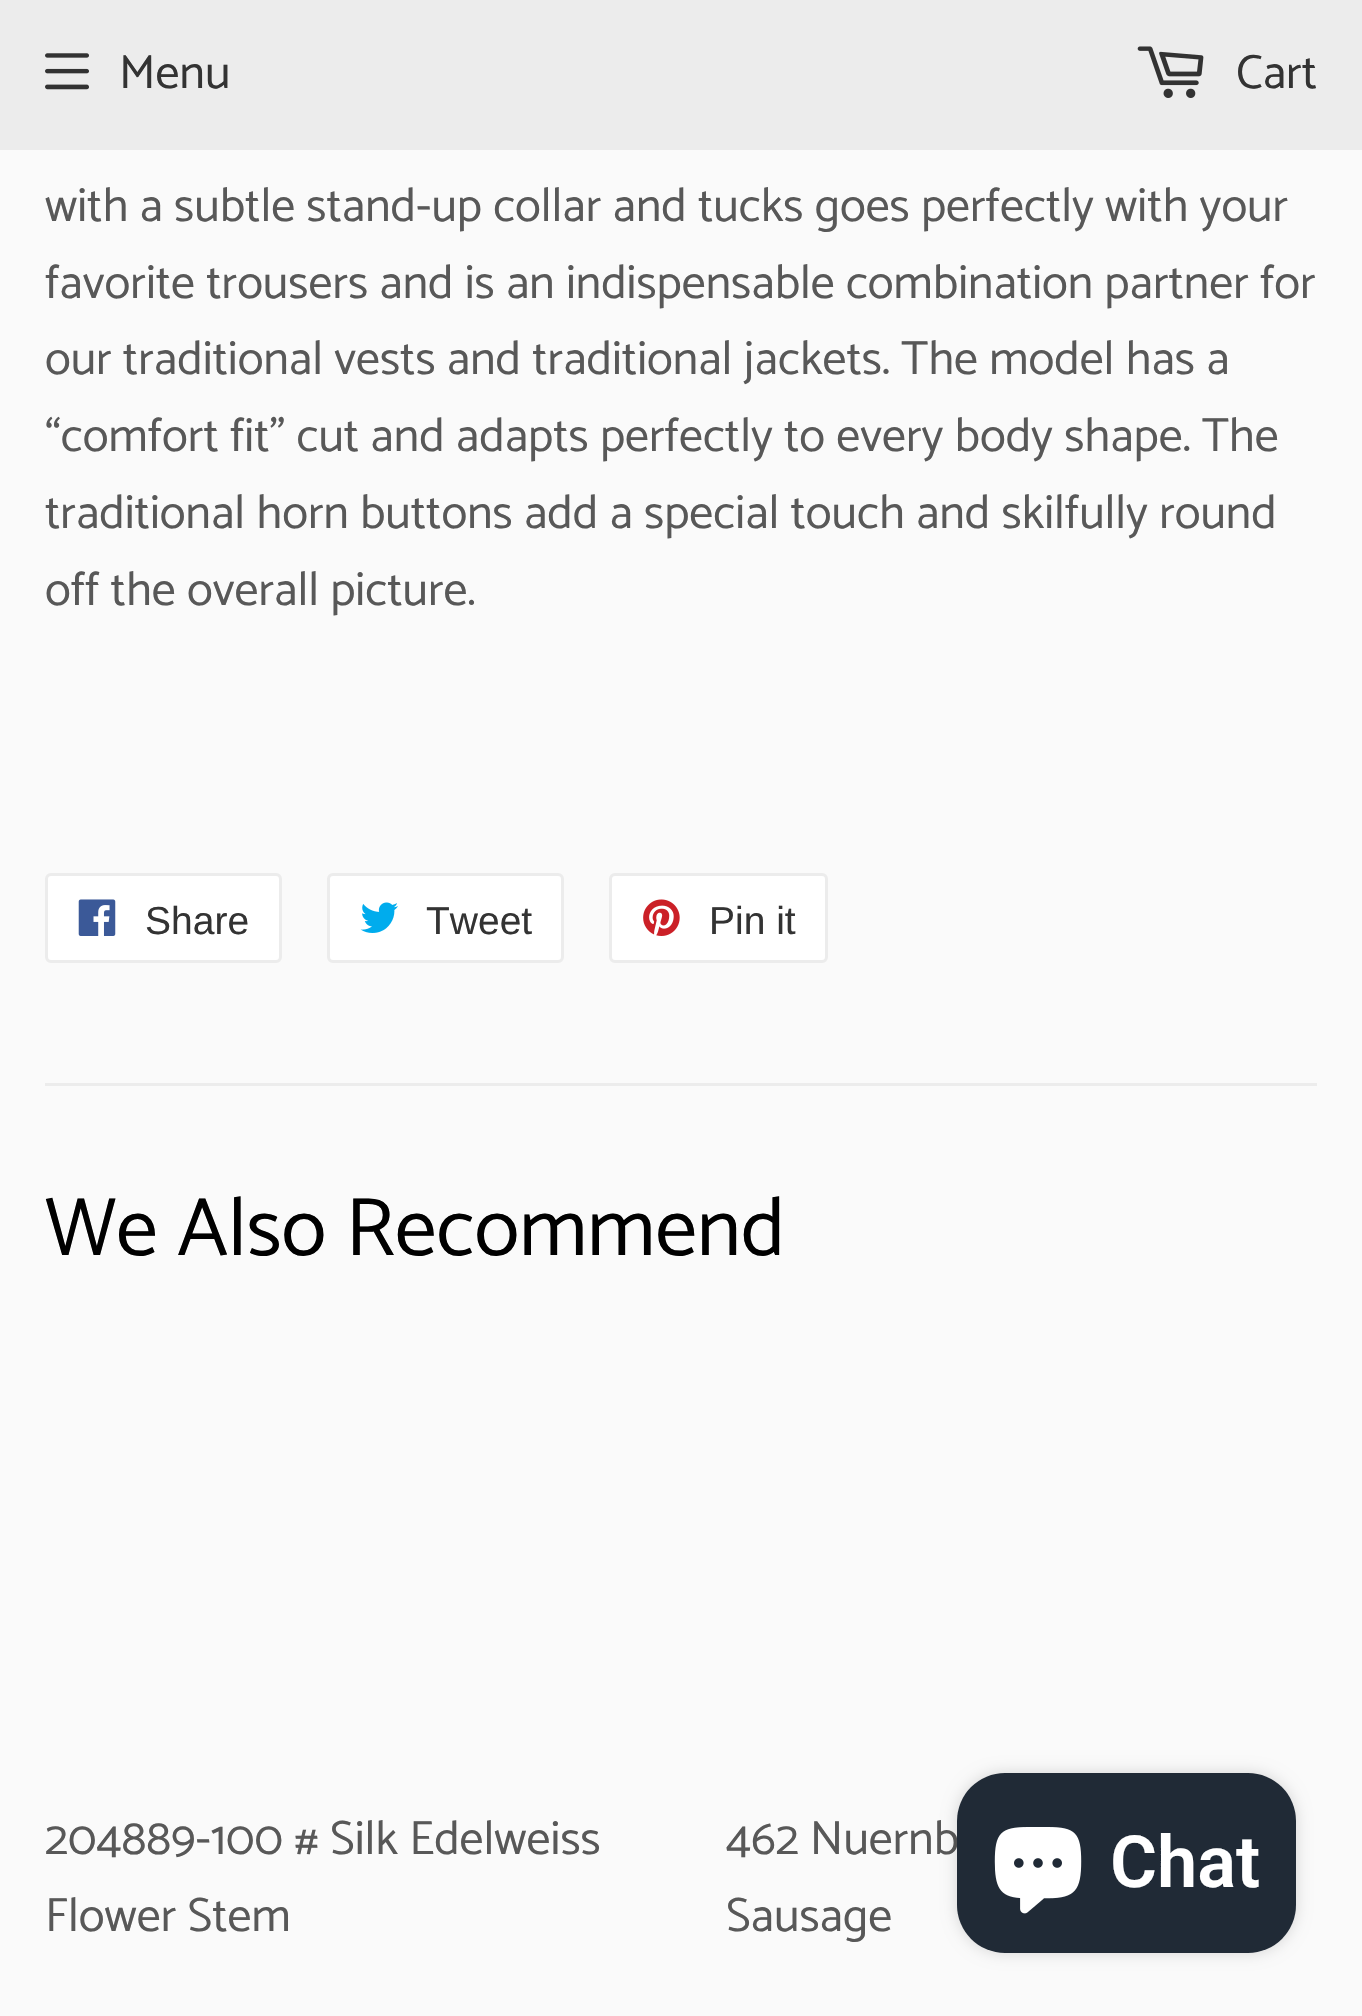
void draw(SkCanvas* canvas) {
    SkPaint paint;
    paint.setAntiAlias(true);
    auto face = [&](const char* family, int weight, float size, bool italic = false) {
        SkFontStyle style(weight, SkFontStyle::kNormal_Width,
            italic ? SkFontStyle::kItalic_Slant : SkFontStyle::kUpright_Slant);
        SkFont result(fontMgr->matchFamilyStyle(family, style), size);
        result.setSubpixel(true);
        return result;
    };
    auto write = [&](const char* s, float x, float y, const SkFont& font, SkColor color) {
        SkPaint ink(SkColor4f::FromColor(color));
        ink.setAntiAlias(true);
        canvas->drawString(s, x, y, font, ink);
    };
    auto block = [&](float x, float y, float w, float h, SkColor color) {
        SkPaint ink(SkColor4f::FromColor(color));
        ink.setAntiAlias(true);
        canvas->drawRect(SkRect::MakeXYWH(x, y, w, h), ink);
    };
    auto card = [&](float x, float y, float w, float h, float radius, SkColor color) {
        SkPaint ink(SkColor4f::FromColor(color));
        ink.setAntiAlias(true);
        canvas->drawRoundRect(SkRect::MakeXYWH(x, y, w, h), radius, radius, ink);
    };
    auto paste = [&](const char* path, float x, float y, float w, float h) {
        auto image = SkImages::DeferredFromEncodedData(SkData::MakeFromFileName(path));
        canvas->drawImageRect(image, SkRect::MakeXYWH(x, y, w, h), SkSamplingOptions());
    };
    canvas->clear(SkColorSetRGB(250, 250, 250));
    block(0, 0, 1362, 150, SkColorSetRGB(236, 236, 236));
    paste("pic1.png", 45, 53, 44, 37);
    auto kFont1 = face("Catamaran", 400, 48);
    write("Menu", 119, 88, kFont1, SkColorSetRGB(51, 51, 51));
    paste("pic2.png", 1137, 46, 67, 52);
    write("Cart", 1236, 88, kFont1, SkColorSetRGB(51, 51, 51));
    write("with a subtle stand-up collar and tucks goes perfectly with your", 45, 221, kFont1, SkColorSetRGB(88, 88, 88));
    write("favorite trousers and is an indispensable combination partner for", 45, 298, kFont1, SkColorSetRGB(88, 88, 88));
    write("our traditional vests and traditional jackets. The model has a", 45, 374, kFont1, SkColorSetRGB(88, 88, 88));
    write("“comfort fit” cut and adapts perfectly to every body shape. The", 45, 451, kFont1, SkColorSetRGB(88, 88, 88));
    write("traditional horn buttons add a special touch and skilfully round", 45, 528, kFont1, SkColorSetRGB(88, 88, 88));
    write("off the overall picture.", 45, 605, kFont1, SkColorSetRGB(88, 88, 88));
    paint.setColor(SK_ColorWHITE);
    canvas->drawRoundRect(SkRect::MakeXYWH(46.5f, 874.5f, 234, 87), 4.5f, 4.5f, paint);
    paint.setStyle(SkPaint::kStroke_Style);
    paint.setStrokeWidth(3);
    paint.setColor(SkColorSetRGB(236, 236, 236));
    canvas->drawRoundRect(SkRect::MakeXYWH(46.5f, 874.5f, 234, 87), 4.5f, 4.5f, paint);
    paste("pic3.png", 78, 899, 38, 37);
    auto kFont2 = face("Liberation Sans", 400, 39);
    write("Share", 145, 934, kFont2, SkColorSetRGB(51, 51, 51));
    paint.setStyle(SkPaint::kFill_Style);
    paint.setColor(SK_ColorWHITE);
    canvas->drawRoundRect(SkRect::MakeXYWH(328.5f, 874.5f, 234, 87), 4.5f, 4.5f, paint);
    paint.setStyle(SkPaint::kStroke_Style);
    paint.setColor(SkColorSetRGB(236, 236, 236));
    canvas->drawRoundRect(SkRect::MakeXYWH(328.5f, 874.5f, 234, 87), 4.5f, 4.5f, paint);
    paste("pic4.png", 360, 902, 38, 31);
    write("Tweet", 426, 934, kFont2, SkColorSetRGB(51, 51, 51));
    paint.setStyle(SkPaint::kFill_Style);
    paint.setColor(SK_ColorWHITE);
    canvas->drawRoundRect(SkRect::MakeXYWH(610.5f, 874.5f, 216, 87), 4.5f, 4.5f, paint);
    paint.setStyle(SkPaint::kStroke_Style);
    paint.setColor(SkColorSetRGB(236, 236, 236));
    canvas->drawRoundRect(SkRect::MakeXYWH(610.5f, 874.5f, 216, 87), 4.5f, 4.5f, paint);
    paste("pic5.png", 643, 899, 37, 37);
    write("Pin it", 709, 934, kFont2, SkColorSetRGB(51, 51, 51));
    block(45, 1083, 1272, 3, SkColorSetRGB(236, 236, 236));
    auto kFont3 = face("Catamaran", 400, 83.25f);
    write("We Also Recommend", 45, 1255, kFont3, SK_ColorBLACK);
    write("204889-100 # Silk Edelweiss", 45, 1854, kFont1, SkColorSetRGB(88, 88, 88));
    write("Flower Stem", 45, 1931, kFont1, SkColorSetRGB(88, 88, 88));
    write("462 Nuernb", 726, 1854, kFont1, SkColorSetRGB(88, 88, 88));
    write("Sausage", 726, 1931, kFont1, SkColorSetRGB(88, 88, 88));
    paint.setStyle(SkPaint::kFill_Style);
    paint.setColor(SkColorSetARGB(38, 0, 0, 0));
    paint.setMaskFilter(SkMaskFilter::MakeBlur(kNormal_SkBlurStyle, 7.5f));
    canvas->drawRoundRect(SkRect::MakeXYWH(957, 1773, 339, 180), 48, 48, paint);
    paint.setMaskFilter(nullptr);
    card(957, 1773, 339, 180, 48, SkColorSetRGB(32, 42, 54));
    paste("pic6.png", 994, 1827, 88, 87);
    auto kFont4 = face("Roboto", 600, 72);
    write("Chat", 1110, 1887, kFont4, SK_ColorWHITE);
}
